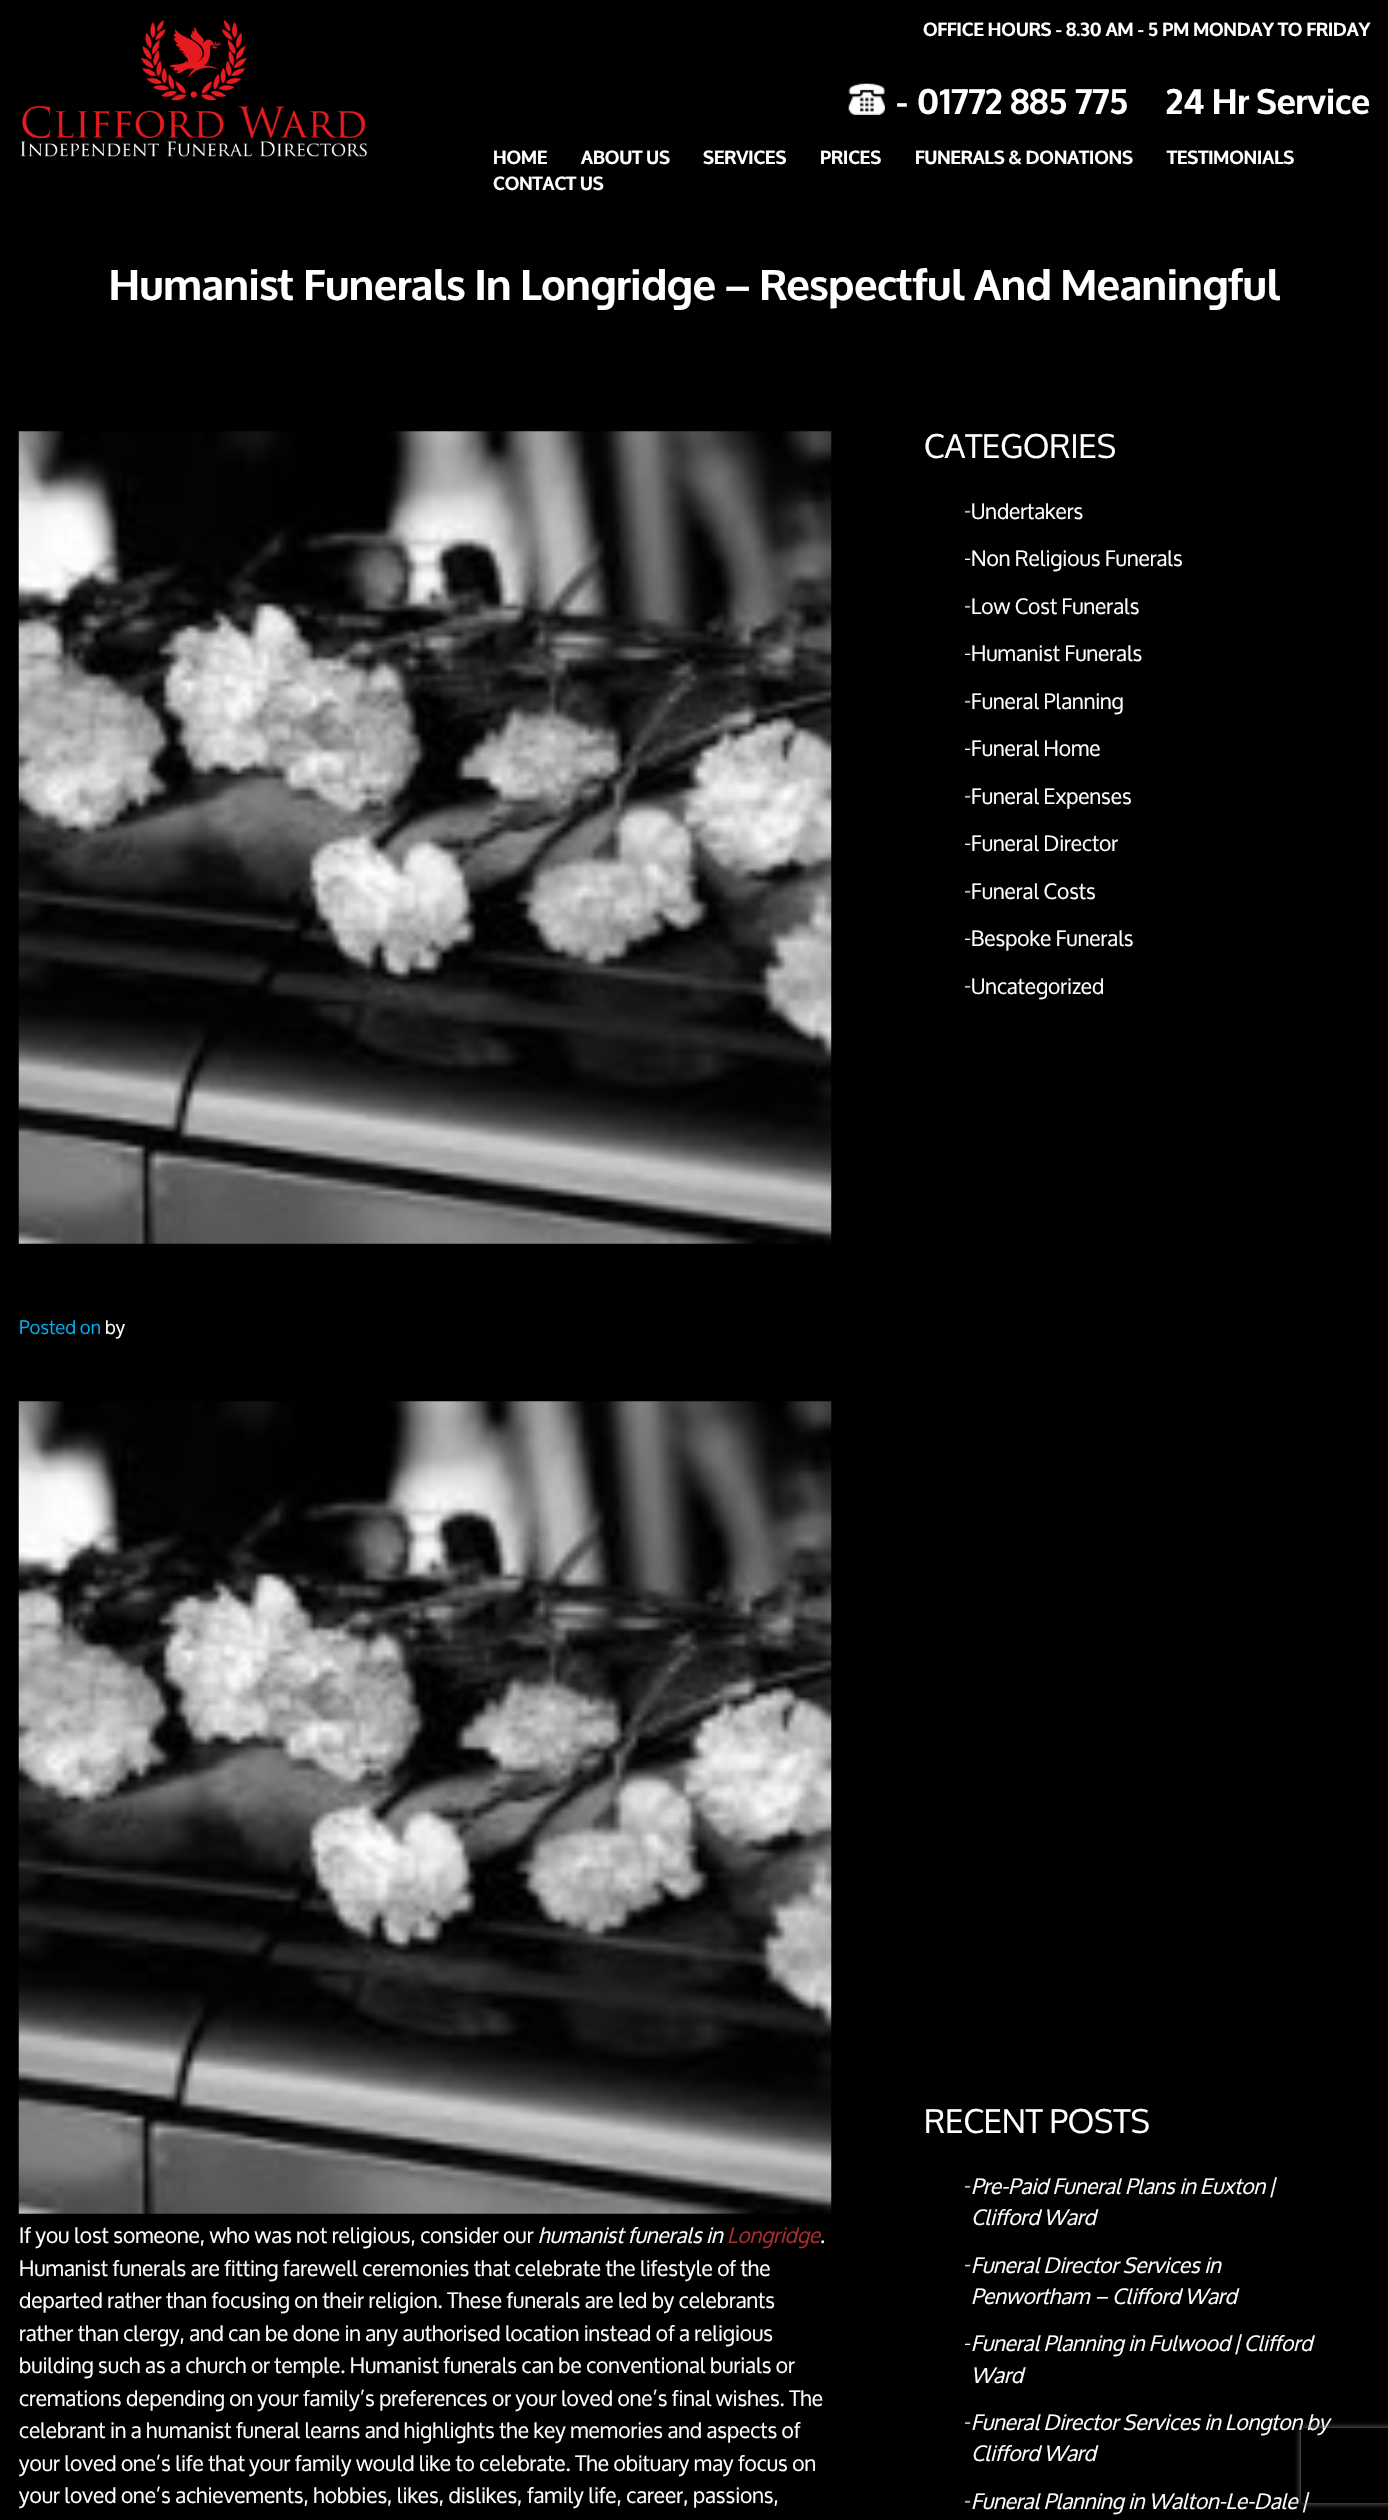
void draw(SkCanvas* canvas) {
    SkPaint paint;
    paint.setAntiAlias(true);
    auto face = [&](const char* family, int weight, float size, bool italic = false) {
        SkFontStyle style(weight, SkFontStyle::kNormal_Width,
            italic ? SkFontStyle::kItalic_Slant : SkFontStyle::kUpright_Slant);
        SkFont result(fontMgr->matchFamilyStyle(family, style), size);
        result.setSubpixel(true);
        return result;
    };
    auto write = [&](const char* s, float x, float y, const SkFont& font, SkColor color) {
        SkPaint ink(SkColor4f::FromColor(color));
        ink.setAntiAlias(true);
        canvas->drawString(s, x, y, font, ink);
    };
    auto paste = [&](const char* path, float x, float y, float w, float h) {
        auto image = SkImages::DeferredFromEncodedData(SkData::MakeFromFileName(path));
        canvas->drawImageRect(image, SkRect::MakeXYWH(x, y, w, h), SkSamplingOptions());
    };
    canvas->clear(SK_ColorBLACK);
    paste("pic1.png", 21, 20, 346, 137);
    auto kFont1 = face("Oxygen", 700, 18.75f);
    write("OFFICE HOURS - 8.30 AM - 5 PM MONDAY TO FRIDAY", 923, 36, kFont1, SK_ColorWHITE);
    paste("pic2.png", 848, 83, 37, 32);
    auto kFont2 = face("Oxygen", 700, 35);
    write("-", 896, 114, kFont2, SK_ColorWHITE);
    write("01772 885 775", 917, 114, kFont2, SK_ColorWHITE);
    write("24 Hr Service", 1166, 114, kFont2, SK_ColorWHITE);
    write("HOME", 493, 164, kFont1, SK_ColorWHITE);
    write("ABOUT US", 581, 164, kFont1, SK_ColorWHITE);
    write("SERVICES", 703, 164, kFont1, SK_ColorWHITE);
    write("PRICES", 820, 164, kFont1, SK_ColorWHITE);
    write("FUNERALS & DONATIONS", 915, 164, kFont1, SK_ColorWHITE);
    write("TESTIMONIALS", 1167, 164, kFont1, SK_ColorWHITE);
    write("CONTACT US", 493, 190, kFont1, SK_ColorWHITE);
    auto kFont3 = face("Oxygen", 700, 42.5f);
    write("Humanist Funerals In Longridge – Respectful And Meaningful", 109, 300, kFont3, SK_ColorWHITE);
    paste("pic3.png", 18, 431, 814, 813);
    auto kFont4 = face("Oxygen", 400, 18.75f);
    write("Posted on", 19, 1334, kFont4, SkColorSetRGB(0, 174, 239));
    write("by", 105, 1334, kFont4, SK_ColorWHITE);
    paste("pic4.png", 18, 1401, 814, 813);
    auto kFont5 = face("Oxygen", 400, 21.25f);
    write("If you lost someone, who was not religious, consider our", 19, 2243, kFont5, SK_ColorWHITE);
    auto kFont6 = face("Oxygen", 400, 21.25f, true);
    write("humanist funerals in", 538, 2243, kFont6, SK_ColorWHITE);
    write("Longridge", 727, 2243, kFont6, SkColorSetRGB(172, 43, 45));
    write(".", 820, 2243, kFont5, SK_ColorWHITE);
    write("Humanist funerals are fitting farewell ceremonies that celebrate the lifestyle of the", 19, 2276, kFont5, SK_ColorWHITE);
    write("departed rather than focusing on their religion. These funerals are led by celebrants", 19, 2308, kFont5, SK_ColorWHITE);
    write("rather than clergy, and can be done in any authorised location instead of a religious", 19, 2341, kFont5, SK_ColorWHITE);
    write("building such as a church or temple. Humanist funerals can be conventional burials or", 19, 2373, kFont5, SK_ColorWHITE);
    write("cremations depending on your family’s preferences or your loved one’s final wishes. The", 19, 2406, kFont5, SK_ColorWHITE);
    write("celebrant in a humanist funeral learns and highlights the key memories and aspects of", 19, 2438, kFont5, SK_ColorWHITE);
    write("your loved one’s life that your family would like to celebrate. The obituary may focus on", 19, 2471, kFont5, SK_ColorWHITE);
    write("your loved one’s achievements, hobbies, likes, dislikes, family life, career, passions,", 19, 2503, kFont5, SK_ColorWHITE);
    auto kFont7 = face("Oxygen", 400, 32.5f);
    write("CATEGORIES", 924, 458, kFont7, SK_ColorWHITE);
    paste("pic5.png", 965, 510, 7, 3);
    write("Undertakers", 971, 519, kFont5, SK_ColorWHITE);
    paste("pic6.png", 965, 557, 7, 3);
    write("Non Religious Funerals", 971, 566, kFont5, SK_ColorWHITE);
    paste("pic5.png", 965, 605, 7, 3);
    write("Low Cost Funerals", 971, 614, kFont5, SK_ColorWHITE);
    paste("pic6.png", 965, 652, 7, 3);
    write("Humanist Funerals", 971, 661, kFont5, SK_ColorWHITE);
    paste("pic5.png", 965, 700, 7, 3);
    write("Funeral Planning", 971, 709, kFont5, SK_ColorWHITE);
    paste("pic6.png", 965, 747, 7, 3);
    write("Funeral Home", 971, 756, kFont5, SK_ColorWHITE);
    paste("pic5.png", 965, 795, 7, 3);
    write("Funeral Expenses", 971, 804, kFont5, SK_ColorWHITE);
    paste("pic6.png", 965, 842, 7, 3);
    write("Funeral Director", 971, 851, kFont5, SK_ColorWHITE);
    paste("pic5.png", 965, 890, 7, 3);
    write("Funeral Costs", 971, 899, kFont5, SK_ColorWHITE);
    paste("pic6.png", 965, 937, 7, 3);
    write("Bespoke Funerals", 971, 946, kFont5, SK_ColorWHITE);
    paste("pic5.png", 965, 985, 7, 3);
    write("Uncategorized", 971, 994, kFont5, SK_ColorWHITE);
    write("RECENT POSTS", 924, 2133, kFont7, SK_ColorWHITE);
    paste("pic5.png", 965, 2185, 7, 3);
    write("Pre-Paid Funeral Plans in Euxton |", 971, 2194, kFont6, SK_ColorWHITE);
    write("Clifford Ward", 971, 2225, kFont6, SK_ColorWHITE);
    paste("pic7.png", 965, 2263, 7, 4);
    write("Funeral Director Services in", 971, 2273, kFont6, SK_ColorWHITE);
    write("Penwortham – Clifford Ward", 971, 2304, kFont6, SK_ColorWHITE);
    paste("pic6.png", 965, 2342, 7, 3);
    write("Funeral Planning in Fulwood | Clifford", 971, 2351, kFont6, SK_ColorWHITE);
    write("Ward", 971, 2383, kFont6, SK_ColorWHITE);
    paste("pic8.png", 965, 2421, 7, 3);
    write("Funeral Director Services in Longton by", 971, 2430, kFont6, SK_ColorWHITE);
    write("Clifford Ward", 971, 2461, kFont6, SK_ColorWHITE);
    paste("pic5.png", 965, 2500, 7, 3);
    write("Funeral Planning in Walton-Le-Dale |", 971, 2509, kFont6, SK_ColorWHITE);
    canvas->save();
    canvas->clipPath(SkPathBuilder(SkPathFillType::kEvenOdd).moveTo(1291, 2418).lineTo(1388, 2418).lineTo(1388, 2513).lineTo(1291, 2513).close().moveTo(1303.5f, 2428).lineTo(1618.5f, 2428).cubicTo(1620, 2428, 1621, 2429, 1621, 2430.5f).lineTo(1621, 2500.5f).cubicTo(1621, 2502, 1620, 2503, 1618.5f, 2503).lineTo(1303.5f, 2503).cubicTo(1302, 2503, 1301, 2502, 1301, 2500.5f).lineTo(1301, 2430.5f).cubicTo(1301, 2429, 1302, 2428, 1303.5f, 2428).close().detach(), true);
    paint.setColor(SkColorSetRGB(128, 128, 128));
    paint.setMaskFilter(SkMaskFilter::MakeBlur(kNormal_SkBlurStyle, 3));
    canvas->drawRoundRect(SkRect::MakeXYWH(1301, 2428, 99, 75), 2.5f, 2.5f, paint);
    paint.setMaskFilter(nullptr);
    canvas->restore();
}
